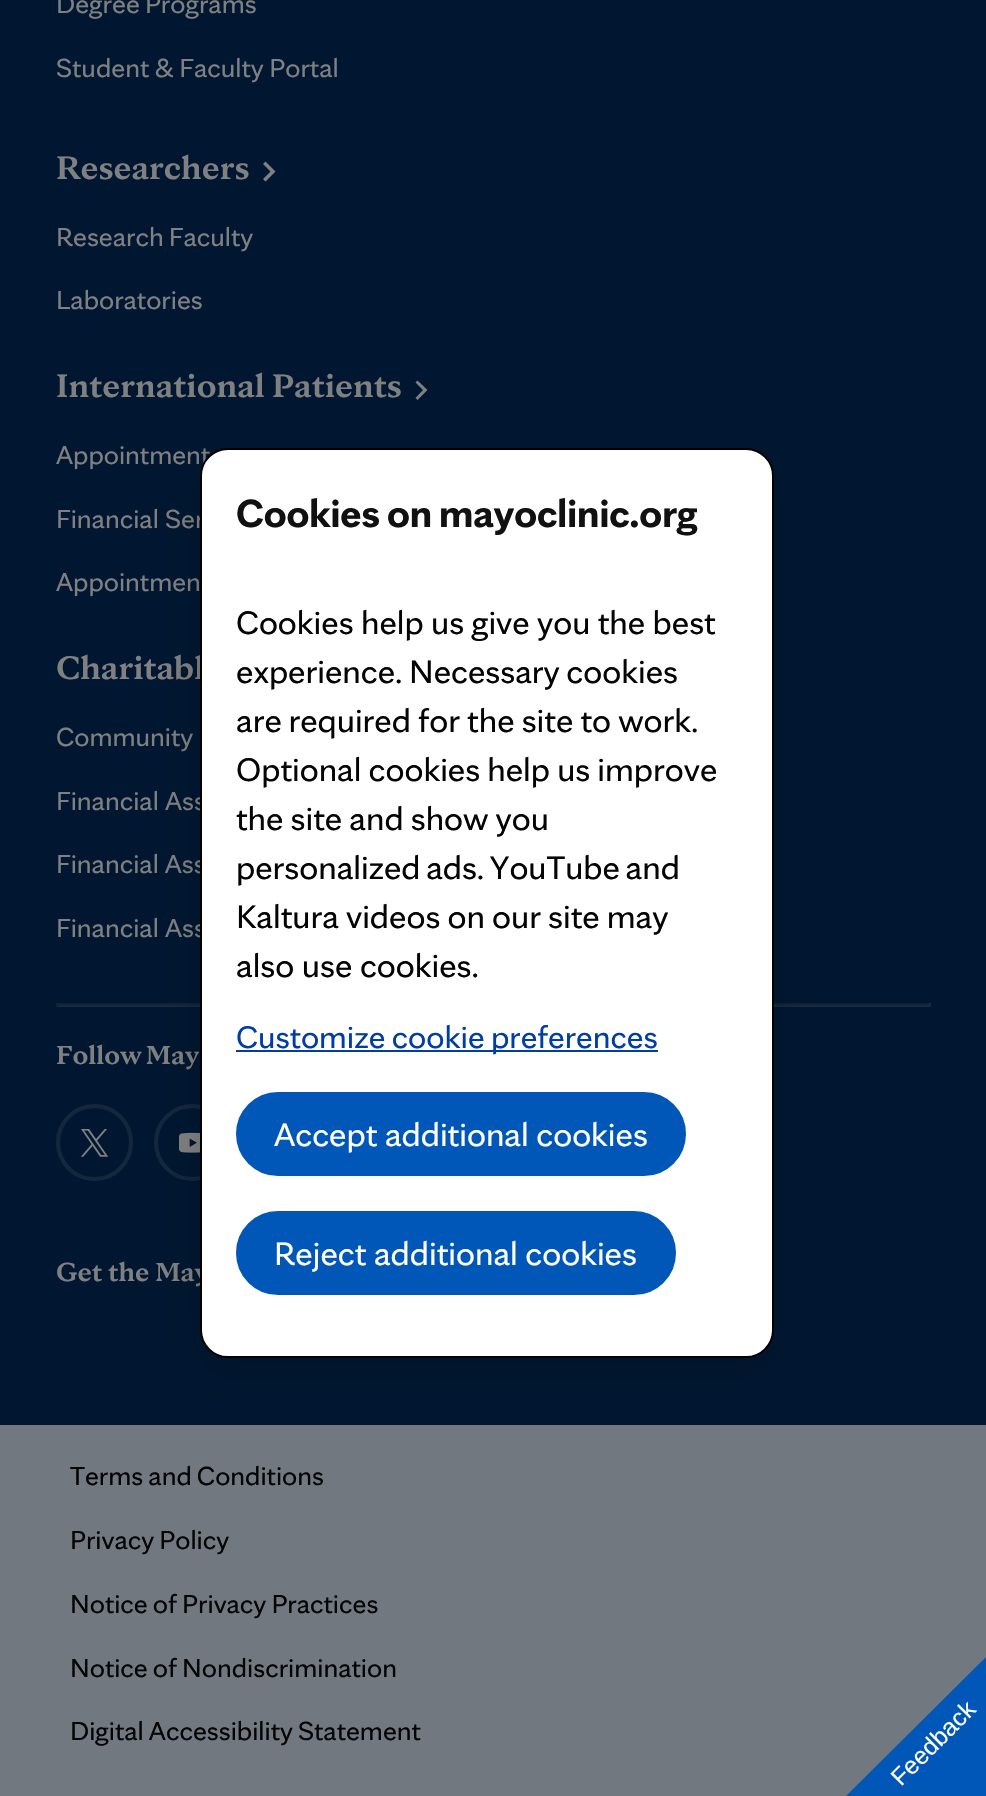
void draw(SkCanvas* canvas) {
    SkPaint paint;
    paint.setAntiAlias(true);
    auto face = [&](const char* family, int weight, float size, bool italic = false) {
        SkFontStyle style(weight, SkFontStyle::kNormal_Width,
            italic ? SkFontStyle::kItalic_Slant : SkFontStyle::kUpright_Slant);
        SkFont result(fontMgr->matchFamilyStyle(family, style), size);
        result.setSubpixel(true);
        return result;
    };
    auto write = [&](const char* s, float x, float y, const SkFont& font, SkColor color) {
        SkPaint ink(SkColor4f::FromColor(color));
        ink.setAntiAlias(true);
        canvas->drawString(s, x, y, font, ink);
    };
    auto writeSpaced = [&](const char* s, float x, float y, const SkFont& font, const SkPaint& ink, float letter, float word) {
        std::vector<SkGlyphID> glyphs(font.countText(s, strlen(s), SkTextEncoding::kUTF8));
        std::vector<float> xs(glyphs.size());
        font.textToGlyphs(s, strlen(s), SkTextEncoding::kUTF8, glyphs);
        font.getXPos(glyphs, xs, x);
        float extra = 0;
        for (size_t i = 0; i < glyphs.size(); i++) {
            xs[i] += extra;
            extra += letter + word * (glyphs[i] == font.unicharToGlyph(' '));
        }
        canvas->drawTextBlob(SkTextBlob::MakeFromPosHGlyphs(glyphs, xs, y, font), 0, 0, ink);
    };
    auto block = [&](float x, float y, float w, float h, SkColor color) {
        SkPaint ink(SkColor4f::FromColor(color));
        ink.setAntiAlias(true);
        canvas->drawRect(SkRect::MakeXYWH(x, y, w, h), ink);
    };
    auto paste = [&](const char* path, float x, float y, float w, float h) {
        auto image = SkImages::DeferredFromEncodedData(SkData::MakeFromFileName(path));
        canvas->drawImageRect(image, SkRect::MakeXYWH(x, y, w, h), SkSamplingOptions());
    };
    canvas->clear(SkColorSetRGB(1, 23, 49));
    auto kFont1 = face("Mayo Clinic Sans", 400, 28);
    paint.setColor(SkColorSetRGB(128, 128, 128));
    writeSpaced("Degree Programs", 56, 13, kFont1, paint, 0, -1);
    writeSpaced("Student & Faculty Portal", 56, 77, kFont1, paint, 0, -0.5f);
    auto kFont2 = face("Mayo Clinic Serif", 700, 35);
    write("Researchers", 56, 179, kFont2, SkColorSetRGB(128, 128, 128));
    canvas->drawPath(SkPathBuilder().moveTo(265.5f, 181.5f).lineTo(263, 179).lineTo(270.5f, 171.5f).lineTo(263, 164).lineTo(265.5f, 161.5f).lineTo(275.5f, 171.5f).close().detach(), paint);
    writeSpaced("Research Faculty", 56, 246, kFont1, paint, 0, -1);
    write("Laboratories", 56, 309, kFont1, SkColorSetRGB(128, 128, 128));
    write("International Patients", 56, 397, kFont2, SkColorSetRGB(128, 128, 128));
    canvas->drawPath(SkPathBuilder().moveTo(417.5f, 400).lineTo(415.5f, 398).lineTo(423, 390).lineTo(415.5f, 382.5f).lineTo(417.5f, 380.5f).lineTo(427.5f, 390).close().detach(), paint);
    write("Appointment", 56, 464, kFont1, SkColorSetRGB(128, 128, 128));
    write("Financial Ser", 56, 528, kFont1, SkColorSetRGB(128, 128, 128));
    write("Appointmen", 56, 591, kFont1, SkColorSetRGB(128, 128, 128));
    write("Charitabl", 56, 679, kFont2, SkColorSetRGB(128, 128, 128));
    writeSpaced("Community", 56, 746, kFont1, paint, 0, -1);
    write("Financial Ass", 56, 810, kFont1, SkColorSetRGB(128, 128, 128));
    writeSpaced("Financial Ass", 56, 873, kFont1, paint, 0, -0.25f);
    write("Financial Ass", 56, 937, kFont1, SkColorSetRGB(128, 128, 128));
    block(56, 1003, 875, 2, SkColorSetRGB(17, 34, 55));
    block(929, 1003, 2, 4, SkColorSetRGB(24, 42, 63));
    block(56, 1005, 875, 2, SkColorSetRGB(24, 42, 63));
    block(56, 1003, 2, 4, SkColorSetRGB(17, 34, 55));
    auto kFont3 = face("Mayo Clinic Serif", 700, 28);
    writeSpaced("Follow May", 56, 1064, kFont3, paint, 0, -2);
    paint.setStyle(SkPaint::kStroke_Style);
    paint.setStrokeWidth(4);
    paint.setColor(SkColorSetRGB(20, 39, 61));
    canvas->drawCircle(94.5f, 1142.5f, 36.5f, paint);
    paste("pic1.png", 81, 1129, 28, 28);
    canvas->drawCircle(192.5f, 1142.5f, 36.5f, paint);
    paste("pic2.png", 179, 1132, 21, 21);
    write("Get the May", 56, 1281, kFont3, SkColorSetRGB(128, 128, 128));
    block(0, 1425, 986, 371, SkColorSetRGB(113, 120, 128));
    paint.setStyle(SkPaint::kFill_Style);
    paint.setColor(SkColorSetRGB(4, 4, 4));
    writeSpaced("Terms and Conditions", 70, 1485, kFont1, paint, 0, -1);
    writeSpaced("Privacy Policy", 70, 1549, kFont1, paint, 0, -1);
    writeSpaced("Notice of Privacy Practices", 70, 1613, kFont1, paint, 0, -1);
    writeSpaced("Notice of Nondiscrimination", 70, 1677, kFont1, paint, 0, -1);
    writeSpaced("Digital Accessibility Statement", 70, 1740, kFont1, paint, 0, -1);
    paint.setColor(SkColorSetARGB(41, 0, 0, 0));
    paint.setMaskFilter(SkMaskFilter::MakeBlur(kNormal_SkBlurStyle, 21));
    canvas->drawRoundRect(SkRect::MakeXYWH(200, 462, 574, 910), 28, 28, paint);
    paint.setMaskFilter(nullptr);
    paint.setColor(SK_ColorWHITE);
    canvas->drawRoundRect(SkRect::MakeXYWH(201, 449, 572, 908), 27, 27, paint);
    paint.setStyle(SkPaint::kStroke_Style);
    paint.setStrokeWidth(2);
    paint.setColor(SK_ColorBLACK);
    canvas->drawRoundRect(SkRect::MakeXYWH(201, 449, 572, 908), 27, 27, paint);
    auto kFont4 = face("Mayo Clinic Sans", 700, 42);
    paint.setStyle(SkPaint::kFill_Style);
    paint.setColor(SkColorSetRGB(17, 17, 17));
    writeSpaced("Cookies on mayoclinic.org", 236, 527, kFont4, paint, 0, -1);
    auto kFont5 = face("Mayo Clinic Sans", 400, 35);
    paint.setColor(SkColorSetRGB(4, 4, 4));
    writeSpaced("Cookies help us give you the best", 236, 634, kFont5, paint, 0, -0.25f);
    writeSpaced("experience. Necessary cookies", 236, 683, kFont5, paint, 0, -1);
    writeSpaced("are required", 236, 732, kFont5, paint, 0, -1);
    writeSpaced("for the site to work.", 418, 732, kFont5, paint, 0, -0.5f);
    writeSpaced("Optional cookies help us improve", 236, 781, kFont5, paint, 0, -0.5f);
    writeSpaced("the site and show you", 236, 830, kFont5, paint, 0, -0.5f);
    writeSpaced("personalized ads. YouTube and", 236, 879, kFont5, paint, 0, -2);
    writeSpaced("Kaltura videos on our site may", 236, 928, kFont5, paint, 0, -0.5f);
    write("also use cookies.", 236, 977, kFont5, SkColorSetRGB(4, 4, 4));
    block(236, 1050, 422, 2, SkColorSetRGB(0, 61, 165));
    auto kFont6 = face("Mayo Clinic Sans", 400, 33.6f);
    paint.setColor(SkColorSetRGB(0, 61, 165));
    writeSpaced("Customize cookie preferences", 236, 1048, kFont6, paint, 0, -1);
    paint.setColor(SkColorSetRGB(0, 87, 184));
    canvas->drawRoundRect(SkRect::MakeXYWH(238, 1094, 446, 80), 40, 40, paint);
    paint.setStyle(SkPaint::kStroke_Style);
    paint.setStrokeWidth(4);
    canvas->drawRoundRect(SkRect::MakeXYWH(238, 1094, 446, 80), 40, 40, paint);
    write("Accept additional cookies", 274, 1146, kFont5, SK_ColorWHITE);
    paint.setStyle(SkPaint::kFill_Style);
    canvas->drawRoundRect(SkRect::MakeXYWH(238, 1213, 436, 80), 40, 40, paint);
    paint.setStyle(SkPaint::kStroke_Style);
    canvas->drawRoundRect(SkRect::MakeXYWH(238, 1213, 436, 80), 40, 40, paint);
    write("Reject additional cookies", 274, 1265, kFont5, SK_ColorWHITE);
    paint.setStyle(SkPaint::kFill_Style);
    canvas->drawPath(SkPathBuilder().moveTo(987, 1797).lineTo(845, 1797).lineTo(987, 1656).close().detach(), paint);
    auto kFont7 = face("Liberation Sans", 400, 24.5f);
    canvas->save();
    canvas->rotate(-45, 901, 1787);
    write("Feedback", 901, 1787, kFont7, SK_ColorWHITE);
    canvas->restore();
}
